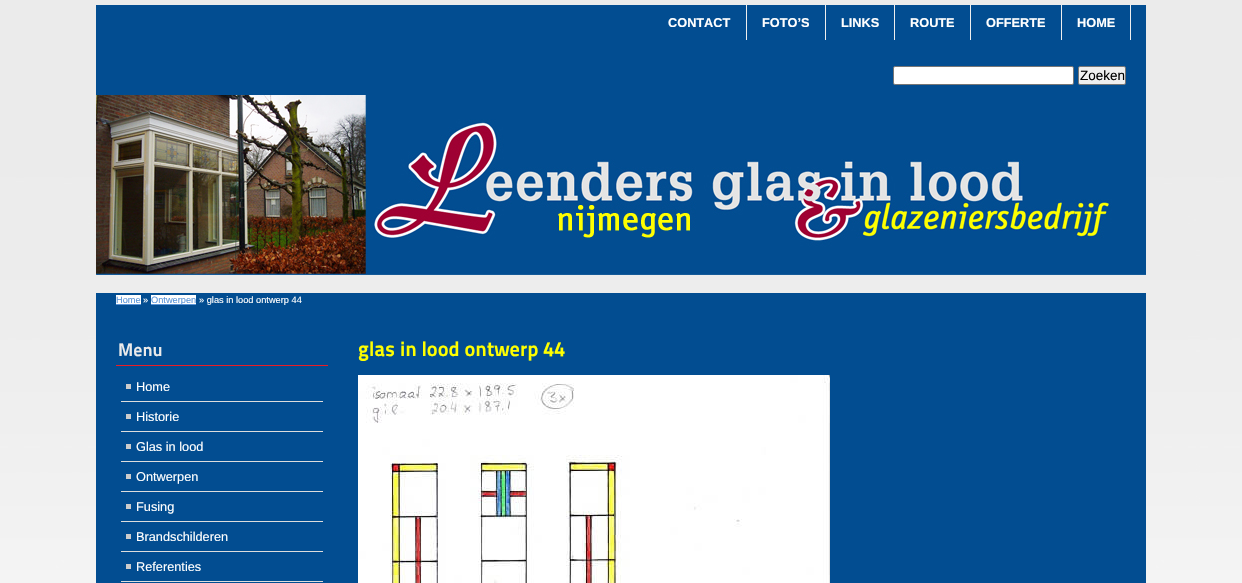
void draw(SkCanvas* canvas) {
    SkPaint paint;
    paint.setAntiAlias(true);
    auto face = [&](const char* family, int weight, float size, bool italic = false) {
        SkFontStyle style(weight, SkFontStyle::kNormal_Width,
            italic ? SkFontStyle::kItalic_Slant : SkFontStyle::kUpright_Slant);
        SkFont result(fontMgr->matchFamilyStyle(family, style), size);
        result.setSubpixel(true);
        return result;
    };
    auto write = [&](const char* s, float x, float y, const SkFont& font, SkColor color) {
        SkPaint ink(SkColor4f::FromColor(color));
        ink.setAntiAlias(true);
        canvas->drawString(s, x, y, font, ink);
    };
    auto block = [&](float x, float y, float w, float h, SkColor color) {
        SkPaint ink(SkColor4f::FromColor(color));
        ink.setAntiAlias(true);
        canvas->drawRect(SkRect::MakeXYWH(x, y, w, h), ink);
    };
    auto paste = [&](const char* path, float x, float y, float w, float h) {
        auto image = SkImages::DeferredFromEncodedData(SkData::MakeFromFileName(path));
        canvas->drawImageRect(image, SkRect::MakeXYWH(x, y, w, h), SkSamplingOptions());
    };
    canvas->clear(SK_ColorWHITE);
    paste("pic1.png", 0, 0, 1242, 583);
    block(96, 5, 1050, 90, SkColorSetRGB(2, 77, 145));
    auto kFont1 = face("Liberation Sans", 700, 12.75f);
    write("CONTACT", 668, 27, kFont1, SK_ColorWHITE);
    block(746, 5, 1, 35, SkColorSetRGB(238, 238, 238));
    write("FOTO’S", 762, 27, kFont1, SK_ColorWHITE);
    block(825, 5, 1, 35, SkColorSetRGB(238, 238, 238));
    write("LINKS", 841, 27, kFont1, SK_ColorWHITE);
    block(894, 5, 1, 35, SkColorSetRGB(238, 238, 238));
    write("ROUTE", 910, 27, kFont1, SK_ColorWHITE);
    block(970, 5, 1, 35, SkColorSetRGB(238, 238, 238));
    write("OFFERTE", 986, 27, kFont1, SK_ColorWHITE);
    block(1061, 5, 1, 35, SkColorSetRGB(238, 238, 238));
    write("HOME", 1077, 27, kFont1, SK_ColorWHITE);
    block(1130, 5, 1, 35, SkColorSetRGB(238, 238, 238));
    paint.setColor(SK_ColorWHITE);
    canvas->drawRoundRect(SkRect::MakeXYWH(893.5f, 66.5f, 180, 18), 1.5f, 1.5f, paint);
    paint.setStyle(SkPaint::kStroke_Style);
    paint.setStrokeWidth(1);
    paint.setColor(SkColorSetRGB(118, 118, 118));
    canvas->drawRoundRect(SkRect::MakeXYWH(893.5f, 66.5f, 180, 18), 1.5f, 1.5f, paint);
    paint.setStyle(SkPaint::kFill_Style);
    paint.setColor(SkColorSetRGB(239, 239, 239));
    canvas->drawRoundRect(SkRect::MakeXYWH(1078.5f, 66.5f, 47, 18), 1.5f, 1.5f, paint);
    paint.setStyle(SkPaint::kStroke_Style);
    paint.setColor(SkColorSetRGB(118, 118, 118));
    canvas->drawRoundRect(SkRect::MakeXYWH(1078.5f, 66.5f, 47, 18), 1.5f, 1.5f, paint);
    auto kFont2 = face("Liberation Sans", 400, 13.5f);
    write("Zoeken", 1080, 80, kFont2, SK_ColorBLACK);
    paste("pic2.png", 96, 95, 1050, 180);
    block(96, 293, 1050, 290, SkColorSetRGB(2, 77, 145));
    block(116, 295, 25, 9, SK_ColorWHITE);
    auto kFont3 = face("Liberation Sans", 400, 9.25f);
    write("Home", 116, 303, kFont3, SkColorSetRGB(90, 148, 215));
    block(116, 304, 25, 1, SkColorSetRGB(90, 148, 215));
    write("»", 143, 303, kFont3, SK_ColorWHITE);
    block(151, 295, 45, 9, SK_ColorWHITE);
    block(151, 304, 45, 1, SkColorSetRGB(90, 148, 215));
    write("Ontwerpen", 151, 303, kFont3, SkColorSetRGB(90, 148, 215));
    write("» glas in lood ontwerp 44", 199, 303, kFont3, SK_ColorWHITE);
    block(116, 365, 212, 1, SkColorSetRGB(237, 28, 36));
    auto kFont4 = face("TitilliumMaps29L", 800, 18);
    write("Menu", 118, 356, kFont4, SkColorSetRGB(235, 235, 235));
    block(121, 401, 202, 1, SkColorSetRGB(221, 221, 221));
    block(126, 384, 5, 5, SkColorSetRGB(204, 204, 204));
    auto kFont5 = face("Liberation Sans", 400, 12.75f);
    write("Home", 136, 391, kFont5, SK_ColorWHITE);
    block(121, 431, 202, 1, SkColorSetRGB(221, 221, 221));
    block(126, 414, 5, 5, SkColorSetRGB(204, 204, 204));
    write("Historie", 136, 421, kFont5, SK_ColorWHITE);
    block(121, 461, 202, 1, SkColorSetRGB(221, 221, 221));
    block(126, 444, 5, 5, SkColorSetRGB(204, 204, 204));
    write("Glas in lood", 136, 451, kFont5, SK_ColorWHITE);
    block(121, 491, 202, 1, SkColorSetRGB(221, 221, 221));
    block(126, 474, 5, 5, SkColorSetRGB(204, 204, 204));
    write("Ontwerpen", 136, 481, kFont5, SK_ColorWHITE);
    block(121, 521, 202, 1, SkColorSetRGB(221, 221, 221));
    block(126, 504, 5, 5, SkColorSetRGB(204, 204, 204));
    write("Fusing", 136, 511, kFont5, SK_ColorWHITE);
    block(121, 551, 202, 1, SkColorSetRGB(221, 221, 221));
    block(126, 534, 5, 5, SkColorSetRGB(204, 204, 204));
    write("Brandschilderen", 136, 541, kFont5, SK_ColorWHITE);
    block(121, 581, 202, 1, SkColorSetRGB(221, 221, 221));
    block(126, 564, 5, 5, SkColorSetRGB(204, 204, 204));
    write("Referenties", 136, 571, kFont5, SK_ColorWHITE);
    auto kFont6 = face("TitilliumMaps29L", 800, 20.5f);
    write("glas in lood ontwerp 44", 358, 356, kFont6, SkColorSetRGB(255, 255, 0));
    paste("pic3.png", 358, 375, 472, 208);
}
